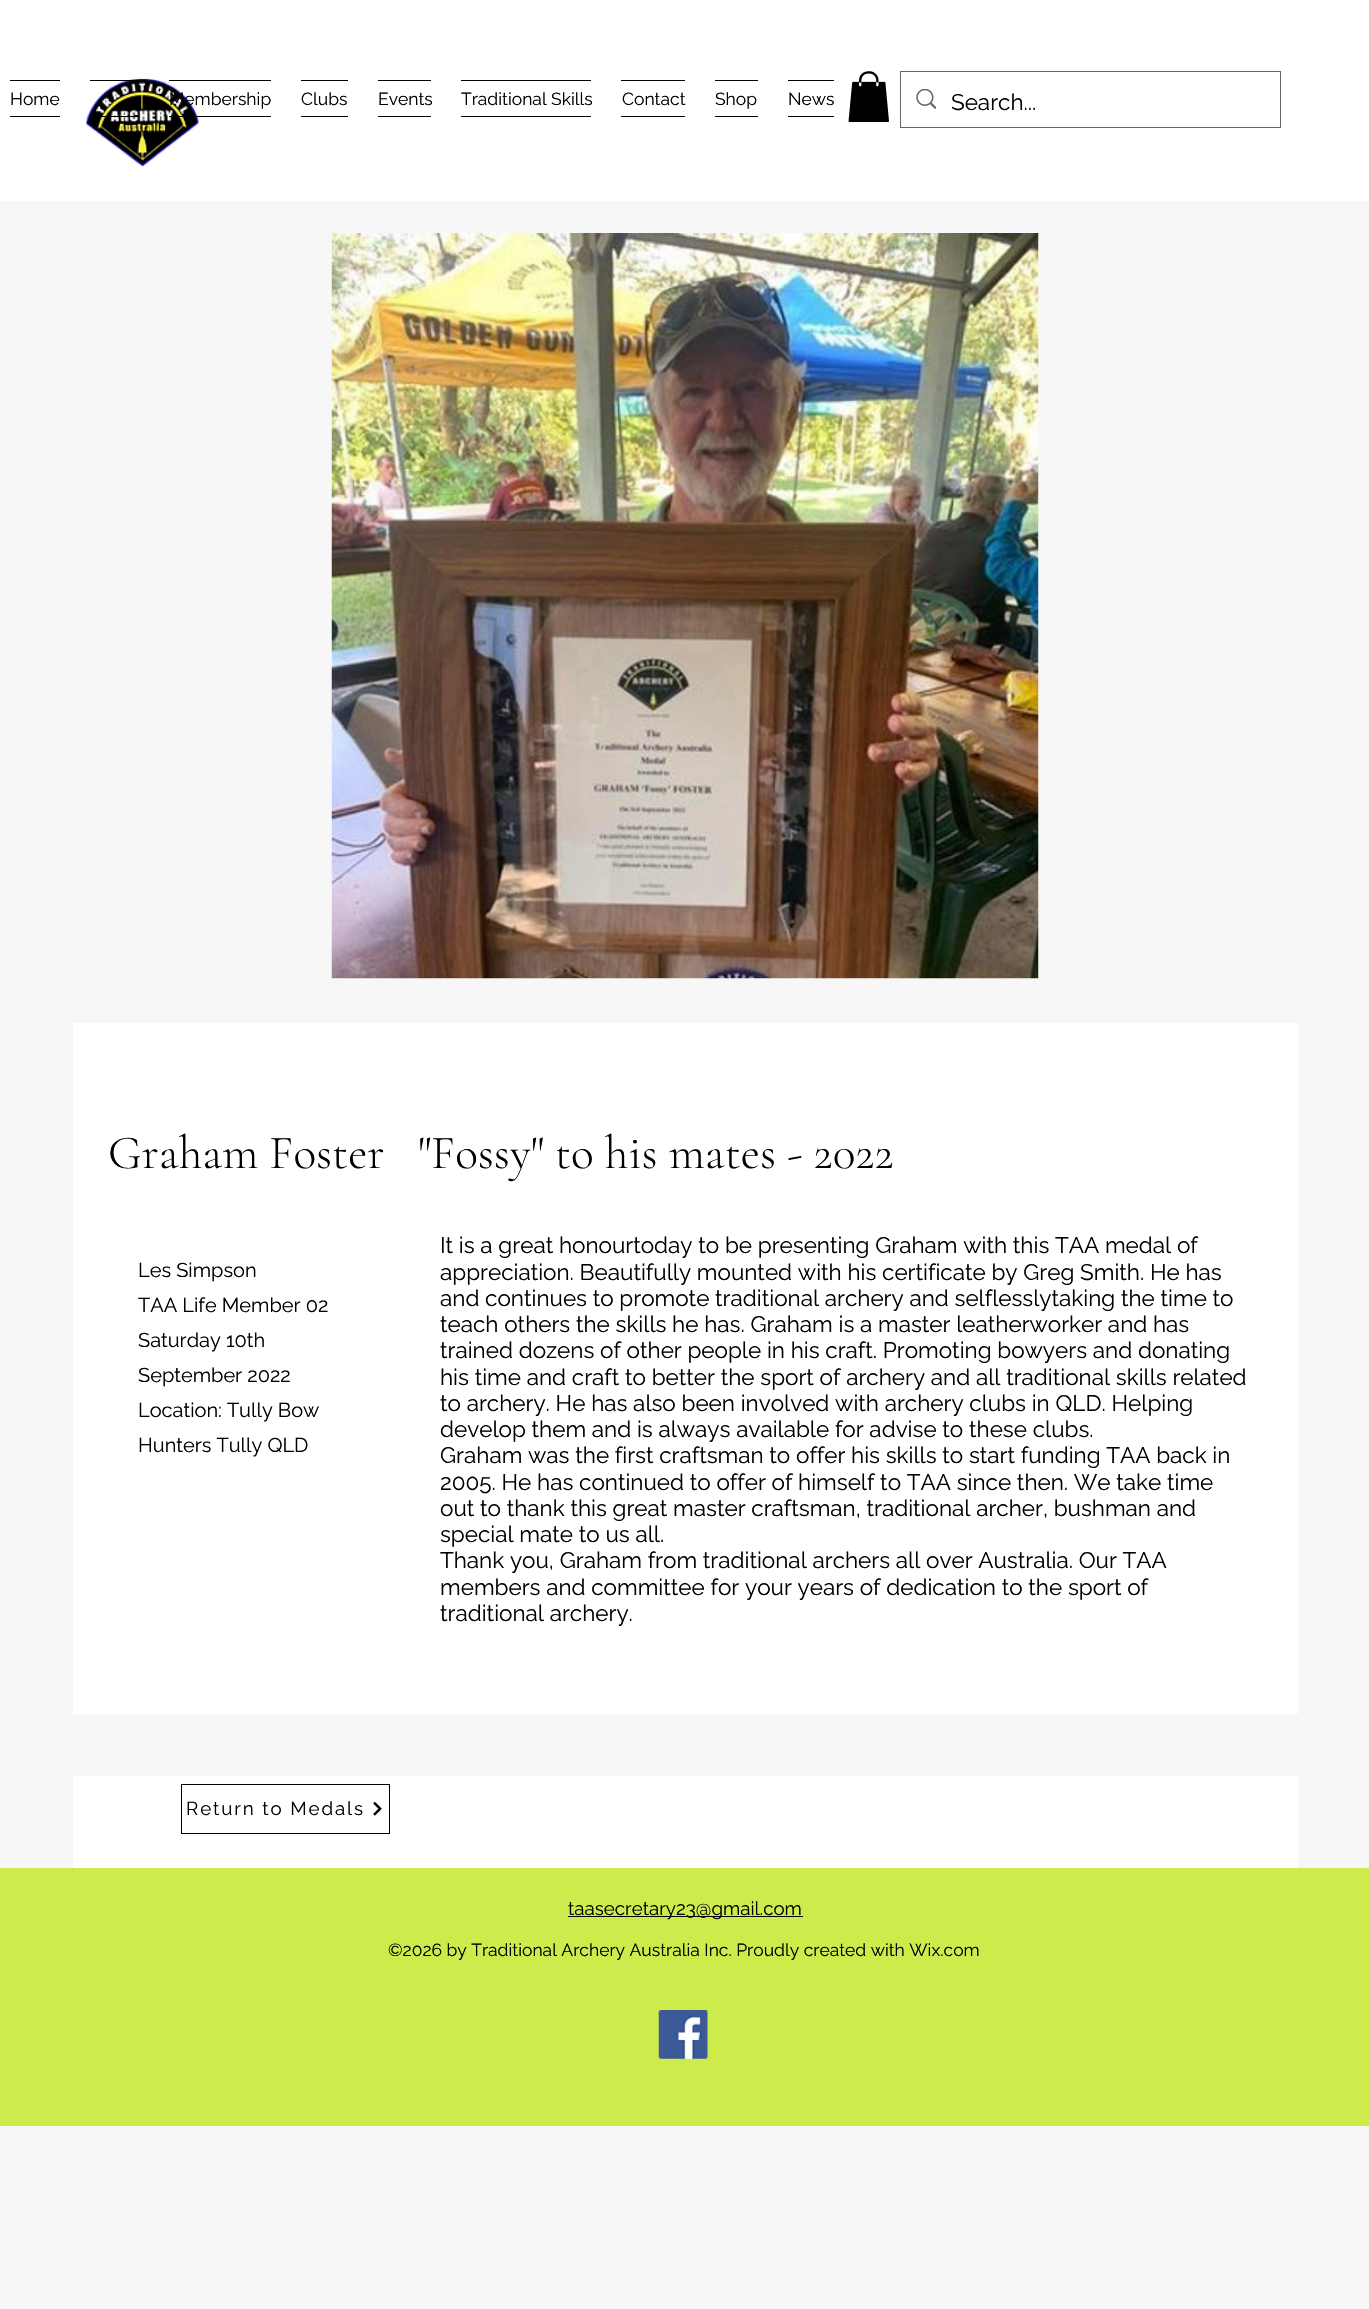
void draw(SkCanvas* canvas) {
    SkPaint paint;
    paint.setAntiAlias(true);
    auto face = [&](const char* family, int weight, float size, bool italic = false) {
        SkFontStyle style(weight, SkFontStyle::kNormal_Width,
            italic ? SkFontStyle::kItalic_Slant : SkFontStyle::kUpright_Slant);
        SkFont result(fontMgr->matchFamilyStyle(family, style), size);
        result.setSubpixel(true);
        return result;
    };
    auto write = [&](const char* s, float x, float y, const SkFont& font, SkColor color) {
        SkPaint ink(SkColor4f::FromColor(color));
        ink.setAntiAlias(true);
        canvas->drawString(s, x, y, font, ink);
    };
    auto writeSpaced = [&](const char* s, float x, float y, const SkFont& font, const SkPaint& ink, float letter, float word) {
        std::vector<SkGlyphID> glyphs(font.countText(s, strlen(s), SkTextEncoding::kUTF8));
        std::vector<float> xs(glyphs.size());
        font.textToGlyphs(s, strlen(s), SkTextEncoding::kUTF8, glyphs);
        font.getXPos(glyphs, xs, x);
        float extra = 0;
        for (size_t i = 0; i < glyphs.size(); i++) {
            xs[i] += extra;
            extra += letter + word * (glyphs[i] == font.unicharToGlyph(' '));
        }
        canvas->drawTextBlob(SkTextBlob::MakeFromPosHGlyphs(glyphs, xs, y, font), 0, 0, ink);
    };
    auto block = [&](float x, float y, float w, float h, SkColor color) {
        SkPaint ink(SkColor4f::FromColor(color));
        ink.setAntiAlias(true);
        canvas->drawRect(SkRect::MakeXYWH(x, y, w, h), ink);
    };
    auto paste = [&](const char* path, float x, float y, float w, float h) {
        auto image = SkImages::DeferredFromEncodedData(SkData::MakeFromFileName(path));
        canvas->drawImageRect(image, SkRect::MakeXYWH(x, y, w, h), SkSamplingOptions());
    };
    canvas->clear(SkColorSetRGB(247, 247, 247));
    block(0, 0, 1369, 201, SK_ColorWHITE);
    paste("pic1.png", 86, 78, 113, 89);
    block(10, 80, 50, 1, SK_ColorBLACK);
    block(10, 116, 50, 1, SK_ColorBLACK);
    auto kFont1 = face("Raleway", 400, 17.5f);
    write("Home", 10, 105, kFont1, SK_ColorBLACK);
    block(90, 80, 49, 1, SK_ColorBLACK);
    block(90, 116, 49, 1, SK_ColorBLACK);
    block(169, 80, 102, 1, SK_ColorBLACK);
    block(169, 116, 102, 1, SK_ColorBLACK);
    write("Membership", 169, 105, kFont1, SK_ColorBLACK);
    block(301, 80, 47, 1, SK_ColorBLACK);
    block(301, 116, 47, 1, SK_ColorBLACK);
    write("Clubs", 301, 105, kFont1, SK_ColorBLACK);
    block(378, 80, 53, 1, SK_ColorBLACK);
    block(378, 116, 53, 1, SK_ColorBLACK);
    write("Events", 378, 105, kFont1, SK_ColorBLACK);
    block(461, 80, 130, 1, SK_ColorBLACK);
    block(461, 116, 130, 1, SK_ColorBLACK);
    write("Traditional Skills", 461, 105, kFont1, SK_ColorBLACK);
    block(621, 80, 64, 1, SK_ColorBLACK);
    block(621, 116, 64, 1, SK_ColorBLACK);
    write("Contact", 622, 105, kFont1, SK_ColorBLACK);
    block(715, 80, 43, 1, SK_ColorBLACK);
    block(715, 116, 43, 1, SK_ColorBLACK);
    write("Shop", 715, 105, kFont1, SK_ColorBLACK);
    block(788, 80, 46, 1, SK_ColorBLACK);
    block(788, 116, 46, 1, SK_ColorBLACK);
    write("News", 788, 105, kFont1, SK_ColorBLACK);
    paste("pic2.png", 848, 71, 41, 51);
    paint.setStyle(SkPaint::kStroke_Style);
    paint.setStrokeWidth(1);
    paint.setColor(SkColorSetRGB(102, 102, 102));
    canvas->drawRect(SkRect::MakeXYWH(900.5f, 71.5f, 380, 56), paint);
    paste("pic3.png", 916, 89, 20, 20);
    auto kFont2 = face("Raleway", 400, 22.5f);
    write("Search...", 951, 110, kFont2, SK_ColorBLACK);
    paste("pic4.png", 331, 233, 708, 746);
    block(73, 1023, 1225, 691, SK_ColorWHITE);
    auto kFont3 = face("Cormorant Garamond", 300, 47.5f);
    write("Graham Foster   \"Fossy\" to his mates - 2022", 108, 1168, kFont3, SK_ColorBLACK);
    auto kFont4 = face("Raleway", 400, 20);
    write("Les Simpson", 138, 1277, kFont4, SK_ColorBLACK);
    write("TAA Life Member 02", 138, 1312, kFont4, SK_ColorBLACK);
    write("Saturday 10th", 138, 1347, kFont4, SK_ColorBLACK);
    write("September 2022", 138, 1382, kFont4, SK_ColorBLACK);
    write("Location: Tully Bow", 138, 1417, kFont4, SK_ColorBLACK);
    write("Hunters Tully QLD", 138, 1452, kFont4, SK_ColorBLACK);
    write("It is a great honour today to be presenting Graham with this TAA medal of", 440, 1253, kFont2, SK_ColorBLACK);
    write("appreciation. Beautifully mounted with his certificate by Greg Smith. He has", 440, 1280, kFont2, SK_ColorBLACK);
    write("and continues to promote traditional archery and selflessly taking the time to", 440, 1306, kFont2, SK_ColorBLACK);
    write("teach others the skills he has. Graham is a master leatherworker and has", 440, 1332, kFont2, SK_ColorBLACK);
    write("trained dozens of other people in his craft. Promoting bowyers and donating", 440, 1358, kFont2, SK_ColorBLACK);
    write("his time and craft to better the sport of archery and all traditional skills related", 440, 1385, kFont2, SK_ColorBLACK);
    write("to archery. He has also been involved with archery clubs in QLD. Helping", 440, 1411, kFont2, SK_ColorBLACK);
    write("develop them and is always available for advise to these clubs.", 440, 1437, kFont2, SK_ColorBLACK);
    write("Graham was the first craftsman to offer his skills to start funding TAA back in", 440, 1463, kFont2, SK_ColorBLACK);
    write("2005. He has continued to offer of himself to TAA since then. We take time", 440, 1490, kFont2, SK_ColorBLACK);
    write("out to thank this great master craftsman, traditional archer, bushman and", 440, 1516, kFont2, SK_ColorBLACK);
    write("special mate to us all.", 440, 1542, kFont2, SK_ColorBLACK);
    write("Thank you, Graham from traditional archers all over Australia. Our TAA", 440, 1568, kFont2, SK_ColorBLACK);
    write("members and committee for your years of dedication to the sport of", 440, 1595, kFont2, SK_ColorBLACK);
    write("traditional archery.", 440, 1621, kFont2, SK_ColorBLACK);
    block(73, 1776, 1225, 92, SK_ColorWHITE);
    paint.setColor(SK_ColorBLACK);
    canvas->drawRect(SkRect::MakeXYWH(181.5f, 1784.5f, 208, 49), paint);
    auto kFont5 = face("Raleway", 400, 18.75f);
    paint.setStyle(SkPaint::kFill_Style);
    writeSpaced("Return to Medals", 186, 1815, kFont5, paint, 1.9f, 0);
    paste("pic5.png", 373, 1801, 9, 15);
    block(0, 1868, 1369, 258, SkColorSetRGB(206, 235, 76));
    block(568, 1916, 235, 1, SK_ColorBLACK);
    write("taasecretary23@gmail.com", 568, 1915, kFont5, SK_ColorBLACK);
    write("©2026 by Traditional Archery Australia Inc. Proudly created with Wix.com", 388, 1956, kFont1, SK_ColorBLACK);
    paste("pic6.png", 658, 2010, 50, 49);
}
